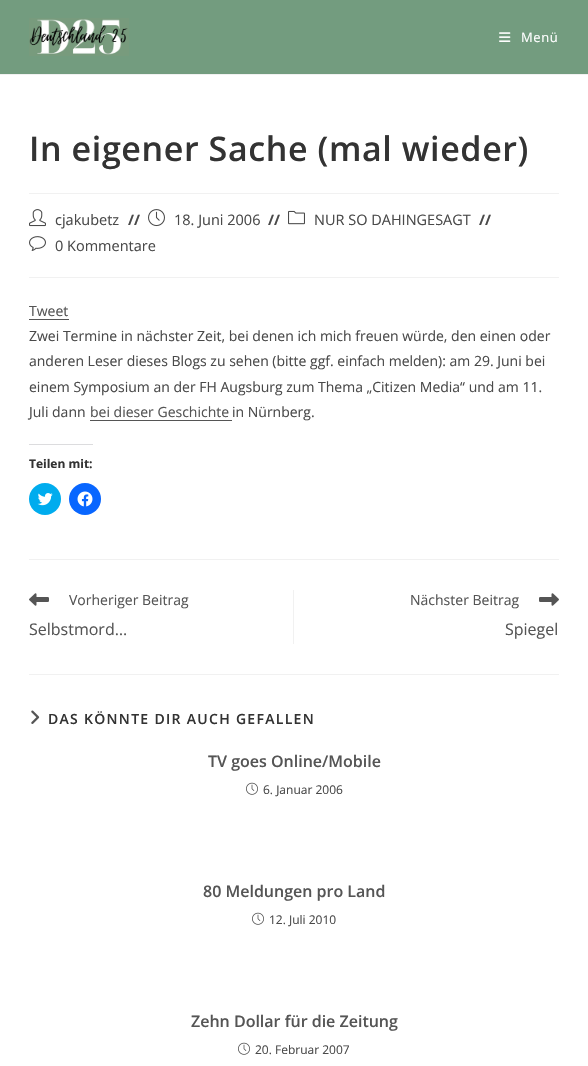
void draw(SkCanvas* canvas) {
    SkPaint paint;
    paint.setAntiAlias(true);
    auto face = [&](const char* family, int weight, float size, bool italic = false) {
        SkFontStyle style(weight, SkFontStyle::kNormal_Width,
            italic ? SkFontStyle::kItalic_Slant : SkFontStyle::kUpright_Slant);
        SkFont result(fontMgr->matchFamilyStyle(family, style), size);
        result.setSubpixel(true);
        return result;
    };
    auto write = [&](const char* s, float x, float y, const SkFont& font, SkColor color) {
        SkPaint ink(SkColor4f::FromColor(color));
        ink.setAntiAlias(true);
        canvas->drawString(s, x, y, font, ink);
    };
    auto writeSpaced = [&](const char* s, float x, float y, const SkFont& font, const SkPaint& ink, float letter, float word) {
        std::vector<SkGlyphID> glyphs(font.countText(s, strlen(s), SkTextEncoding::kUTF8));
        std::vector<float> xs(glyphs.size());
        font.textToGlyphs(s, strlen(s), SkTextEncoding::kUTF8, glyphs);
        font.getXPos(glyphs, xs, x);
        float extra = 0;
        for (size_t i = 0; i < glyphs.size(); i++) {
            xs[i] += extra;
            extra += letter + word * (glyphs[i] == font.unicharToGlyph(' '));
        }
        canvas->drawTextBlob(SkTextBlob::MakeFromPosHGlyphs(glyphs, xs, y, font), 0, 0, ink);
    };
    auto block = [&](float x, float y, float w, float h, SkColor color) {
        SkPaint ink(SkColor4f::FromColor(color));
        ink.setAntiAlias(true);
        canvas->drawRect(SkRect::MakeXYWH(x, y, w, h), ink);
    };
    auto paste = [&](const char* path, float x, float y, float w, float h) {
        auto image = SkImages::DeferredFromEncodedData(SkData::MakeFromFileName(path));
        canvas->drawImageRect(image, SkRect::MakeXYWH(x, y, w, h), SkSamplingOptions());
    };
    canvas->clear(SK_ColorWHITE);
    block(0, 0, 588, 74, SkColorSetRGB(115, 156, 127));
    block(0, 74, 588, 1, SkColorSetRGB(241, 241, 241));
    paste("pic1.png", 29, 18, 100, 38);
    paste("pic2.png", 499, 32, 12, 10);
    auto kFont1 = face("Open Sans", 400, 13);
    paint.setColor(SK_ColorWHITE);
    writeSpaced("Menü", 521, 42, kFont1, paint, 0.6f, 0);
    block(29, 193, 530, 1, SkColorSetRGB(241, 241, 241));
    auto kFont2 = face("Open Sans", 600, 34);
    paint.setColor(SkColorSetRGB(51, 51, 51));
    writeSpaced("In eigener Sache (mal wieder)", 29, 161, kFont2, paint, 0.6f, 0);
    block(29, 277, 530, 1, SkColorSetRGB(241, 241, 241));
    paste("pic3.png", 29, 209, 17, 18);
    auto kFont3 = face("Open Sans", 400, 14.5f);
    write("cjakubetz", 55, 225, kFont3, SkColorSetRGB(74, 74, 74));
    auto kFont4 = face("Open Sans", 700, 14.5f);
    write("//", 128, 225, kFont4, SkColorSetRGB(74, 74, 74));
    paste("pic4.png", 148, 209, 17, 18);
    write("18. Juni 2006", 174, 225, kFont3, SkColorSetRGB(74, 74, 74));
    write("//", 268, 225, kFont4, SkColorSetRGB(74, 74, 74));
    paste("pic5.png", 288, 210, 17, 15);
    write("NUR SO DAHINGESAGT", 314, 225, kFont3, SkColorSetRGB(74, 74, 74));
    write("//", 479, 225, kFont4, SkColorSetRGB(74, 74, 74));
    paste("pic6.png", 29, 236, 17, 15);
    write("0 Kommentare", 55, 251, kFont3, SkColorSetRGB(74, 74, 74));
    auto kFont5 = face("Open Sans", 400, 14);
    write("Tweet", 29, 316, kFont5, SkColorSetRGB(85, 85, 85));
    block(29, 319, 40, 1, SkColorSetRGB(85, 85, 85));
    write("Zwei Termine in nächster Zeit, bei denen ich mich freuen würde, den einen oder", 29, 341, kFont5, SkColorSetRGB(74, 74, 74));
    write("anderen Leser dieses Blogs zu sehen (bitte ggf. einfach melden): am 29. Juni bei", 29, 366, kFont5, SkColorSetRGB(74, 74, 74));
    write("einem Symposium an der FH Augsburg zum Thema „Citizen Media“ und am 11.", 29, 392, kFont5, SkColorSetRGB(74, 74, 74));
    write("Juli dann", 29, 417, kFont5, SkColorSetRGB(74, 74, 74));
    write("bei dieser Geschichte", 90, 417, kFont5, SkColorSetRGB(85, 85, 85));
    block(90, 420, 142, 1, SkColorSetRGB(85, 85, 85));
    write("in Nürnberg.", 232, 417, kFont5, SkColorSetRGB(74, 74, 74));
    block(29, 444, 64, 1, SkColorSetRGB(220, 220, 222));
    auto kFont6 = face("Open Sans", 700, 12);
    write("Teilen mit:", 29, 468, kFont6, SkColorSetRGB(51, 51, 51));
    paint.setColor(SkColorSetRGB(0, 172, 238));
    canvas->drawCircle(45, 499, 16, paint);
    paste("pic7.png", 37, 493, 16, 13);
    paint.setColor(SkColorSetRGB(8, 102, 255));
    canvas->drawCircle(85, 499, 16, paint);
    paste("pic8.png", 77, 491, 16, 16);
    block(29, 559, 530, 1, SkColorSetRGB(241, 241, 241));
    block(293, 590, 1, 54, SkColorSetRGB(241, 241, 241));
    paste("pic9.png", 29, 593, 20, 13);
    write("Vorheriger Beitrag", 69, 605, kFont5, SkColorSetRGB(85, 85, 85));
    auto kFont7 = face("Open Sans", 400, 16);
    write("Selbstmord…", 29, 635, kFont7, SkColorSetRGB(85, 85, 85));
    write("Nächster Beitrag", 410, 605, kFont5, SkColorSetRGB(85, 85, 85));
    paste("pic10.png", 539, 593, 20, 13);
    write("Spiegel", 505, 635, kFont7, SkColorSetRGB(85, 85, 85));
    block(29, 674, 530, 1, SkColorSetRGB(241, 241, 241));
    paste("pic11.png", 31, 710, 9, 14);
    auto kFont8 = face("Open Sans", 600, 14);
    paint.setColor(SkColorSetRGB(51, 51, 51));
    writeSpaced("DAS KÖNNTE DIR AUCH GEFALLEN", 48, 724, kFont8, paint, 1.3f, 0);
    auto kFont9 = face("Open Sans", 600, 16);
    write("TV goes Online/Mobile", 208, 767, kFont9, SkColorSetRGB(85, 85, 85));
    paste("pic12.png", 246, 782, 12, 13);
    auto kFont10 = face("Open Sans", 400, 12);
    write("6. Januar 2006", 263, 794, kFont10, SkColorSetRGB(74, 74, 74));
    write("80 Meldungen pro Land", 203, 897, kFont9, SkColorSetRGB(85, 85, 85));
    paste("pic12.png", 252, 912, 12, 13);
    write("12. Juli 2010", 269, 924, kFont10, SkColorSetRGB(74, 74, 74));
    write("Zehn Dollar für die Zeitung", 191, 1027, kFont9, SkColorSetRGB(85, 85, 85));
    paste("pic12.png", 238, 1042, 12, 13);
    write("20. Februar 2007", 255, 1054, kFont10, SkColorSetRGB(74, 74, 74));
}
